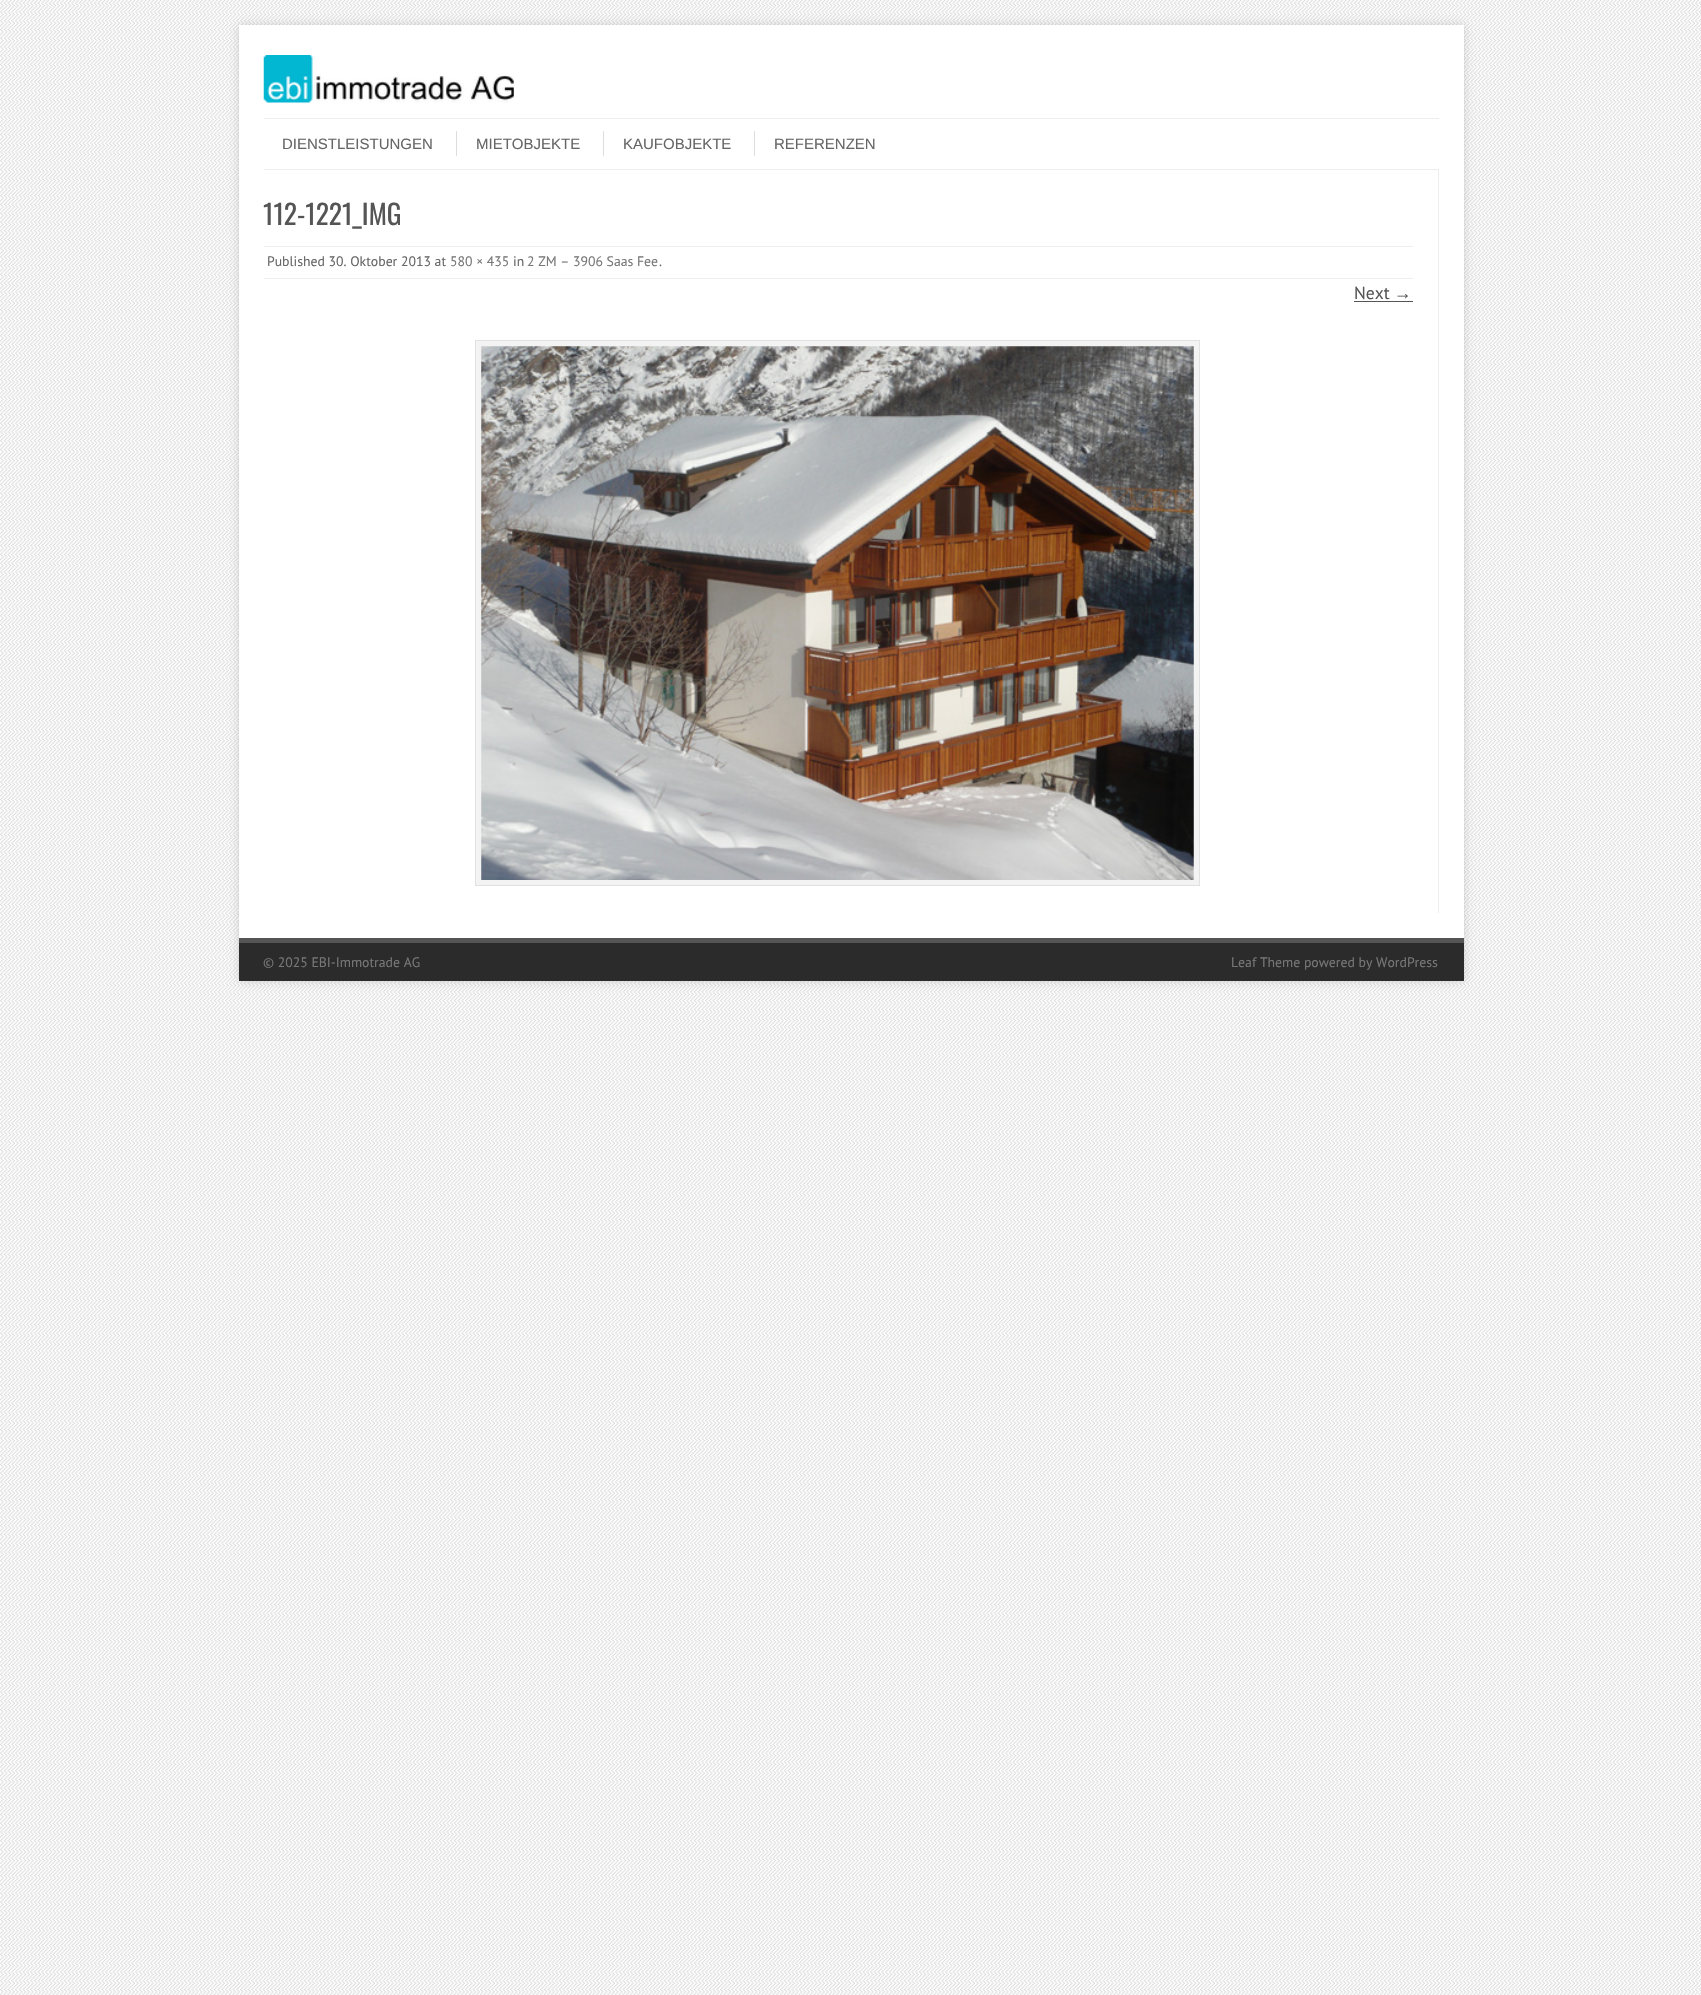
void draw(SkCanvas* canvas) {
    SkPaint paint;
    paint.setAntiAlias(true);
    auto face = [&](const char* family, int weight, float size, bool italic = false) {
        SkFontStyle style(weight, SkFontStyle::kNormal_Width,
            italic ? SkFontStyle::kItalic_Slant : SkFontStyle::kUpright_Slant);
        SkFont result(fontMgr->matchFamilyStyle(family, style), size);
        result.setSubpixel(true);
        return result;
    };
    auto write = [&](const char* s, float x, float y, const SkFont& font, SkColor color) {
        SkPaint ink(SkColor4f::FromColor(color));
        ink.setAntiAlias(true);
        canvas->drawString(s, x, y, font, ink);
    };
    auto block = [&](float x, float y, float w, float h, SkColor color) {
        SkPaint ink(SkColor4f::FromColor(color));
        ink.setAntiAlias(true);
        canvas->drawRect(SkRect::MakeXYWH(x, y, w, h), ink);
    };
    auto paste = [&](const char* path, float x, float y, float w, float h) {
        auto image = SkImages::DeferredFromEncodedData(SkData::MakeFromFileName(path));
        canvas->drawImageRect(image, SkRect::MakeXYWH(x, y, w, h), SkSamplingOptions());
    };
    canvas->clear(SK_ColorWHITE);
    paste("pic1.png", 0, 0, 1701, 1995);
    paint.setColor(SkColorSetARGB(102, 150, 150, 150));
    paint.setMaskFilter(SkMaskFilter::MakeBlur(kNormal_SkBlurStyle, 5));
    canvas->drawRect(SkRect::MakeXYWH(239, 25, 1225, 956), paint);
    paint.setMaskFilter(nullptr);
    block(239, 25, 1225, 913, SK_ColorWHITE);
    paste("pic2.png", 263, 55, 251, 48);
    block(264, 118, 1175, 1, SkColorSetRGB(237, 237, 237));
    block(264, 169, 1175, 1, SkColorSetRGB(237, 237, 237));
    auto kFont1 = face("Liberation Sans", 400, 15);
    write("DIENSTLEISTUNGEN", 282, 149, kFont1, SkColorSetRGB(102, 102, 102));
    block(456, 131, 1, 25, SkColorSetRGB(221, 221, 221));
    write("MIETOBJEKTE", 476, 149, kFont1, SkColorSetRGB(102, 102, 102));
    block(603, 131, 1, 25, SkColorSetRGB(221, 221, 221));
    write("KAUFOBJEKTE", 623, 149, kFont1, SkColorSetRGB(102, 102, 102));
    block(754, 131, 1, 25, SkColorSetRGB(221, 221, 221));
    write("REFERENZEN", 774, 149, kFont1, SkColorSetRGB(102, 102, 102));
    block(1438, 170, 1, 743, SkColorSetRGB(237, 237, 237));
    auto kFont2 = face("Oswald", 400, 27.5f);
    write("112-1221_IMG", 263, 225, kFont2, SkColorSetRGB(85, 85, 85));
    block(264, 246, 1149, 1, SkColorSetRGB(238, 238, 238));
    block(264, 278, 1149, 1, SkColorSetRGB(238, 238, 238));
    auto kFont3 = face("PT Sans", 400, 13.75f);
    write("Published 30. Oktober 2013 at", 267, 266, kFont3, SkColorSetRGB(102, 102, 102));
    write("580 × 435", 450, 266, kFont3, SkColorSetRGB(119, 119, 119));
    write("in", 513, 266, kFont3, SkColorSetRGB(102, 102, 102));
    write("2 ZM – 3906 Saas Fee", 527, 266, kFont3, SkColorSetRGB(119, 119, 119));
    write(".", 659, 266, kFont3, SkColorSetRGB(102, 102, 102));
    auto kFont4 = face("PT Sans", 400, 17.5f);
    write("Next", 1354, 299, kFont4, SkColorSetRGB(85, 85, 85));
    auto kFont5 = face("Liberation Sans", 400, 17.5f);
    write("→", 1394, 299, kFont5, SkColorSetRGB(85, 85, 85));
    block(1354, 301, 59, 1, SkColorSetRGB(85, 85, 85));
    paint.setColor(SkColorSetRGB(243, 243, 243));
    canvas->drawRect(SkRect::MakeXYWH(475.5f, 340.5f, 724, 545), paint);
    paint.setStyle(SkPaint::kStroke_Style);
    paint.setStrokeWidth(1);
    paint.setColor(SkColorSetRGB(225, 225, 225));
    canvas->drawRect(SkRect::MakeXYWH(475.5f, 340.5f, 724, 545), paint);
    paste("pic3.png", 481, 346, 713, 534);
    block(239, 938, 1225, 5, SkColorSetRGB(85, 85, 85));
    block(239, 943, 1225, 38, SkColorSetRGB(43, 43, 43));
    write("© 2025 EBI-Immotrade AG", 263, 967, kFont3, SkColorSetRGB(119, 119, 119));
    write("Leaf Theme powered by WordPress", 1231, 967, kFont3, SkColorSetRGB(119, 119, 119));
}
